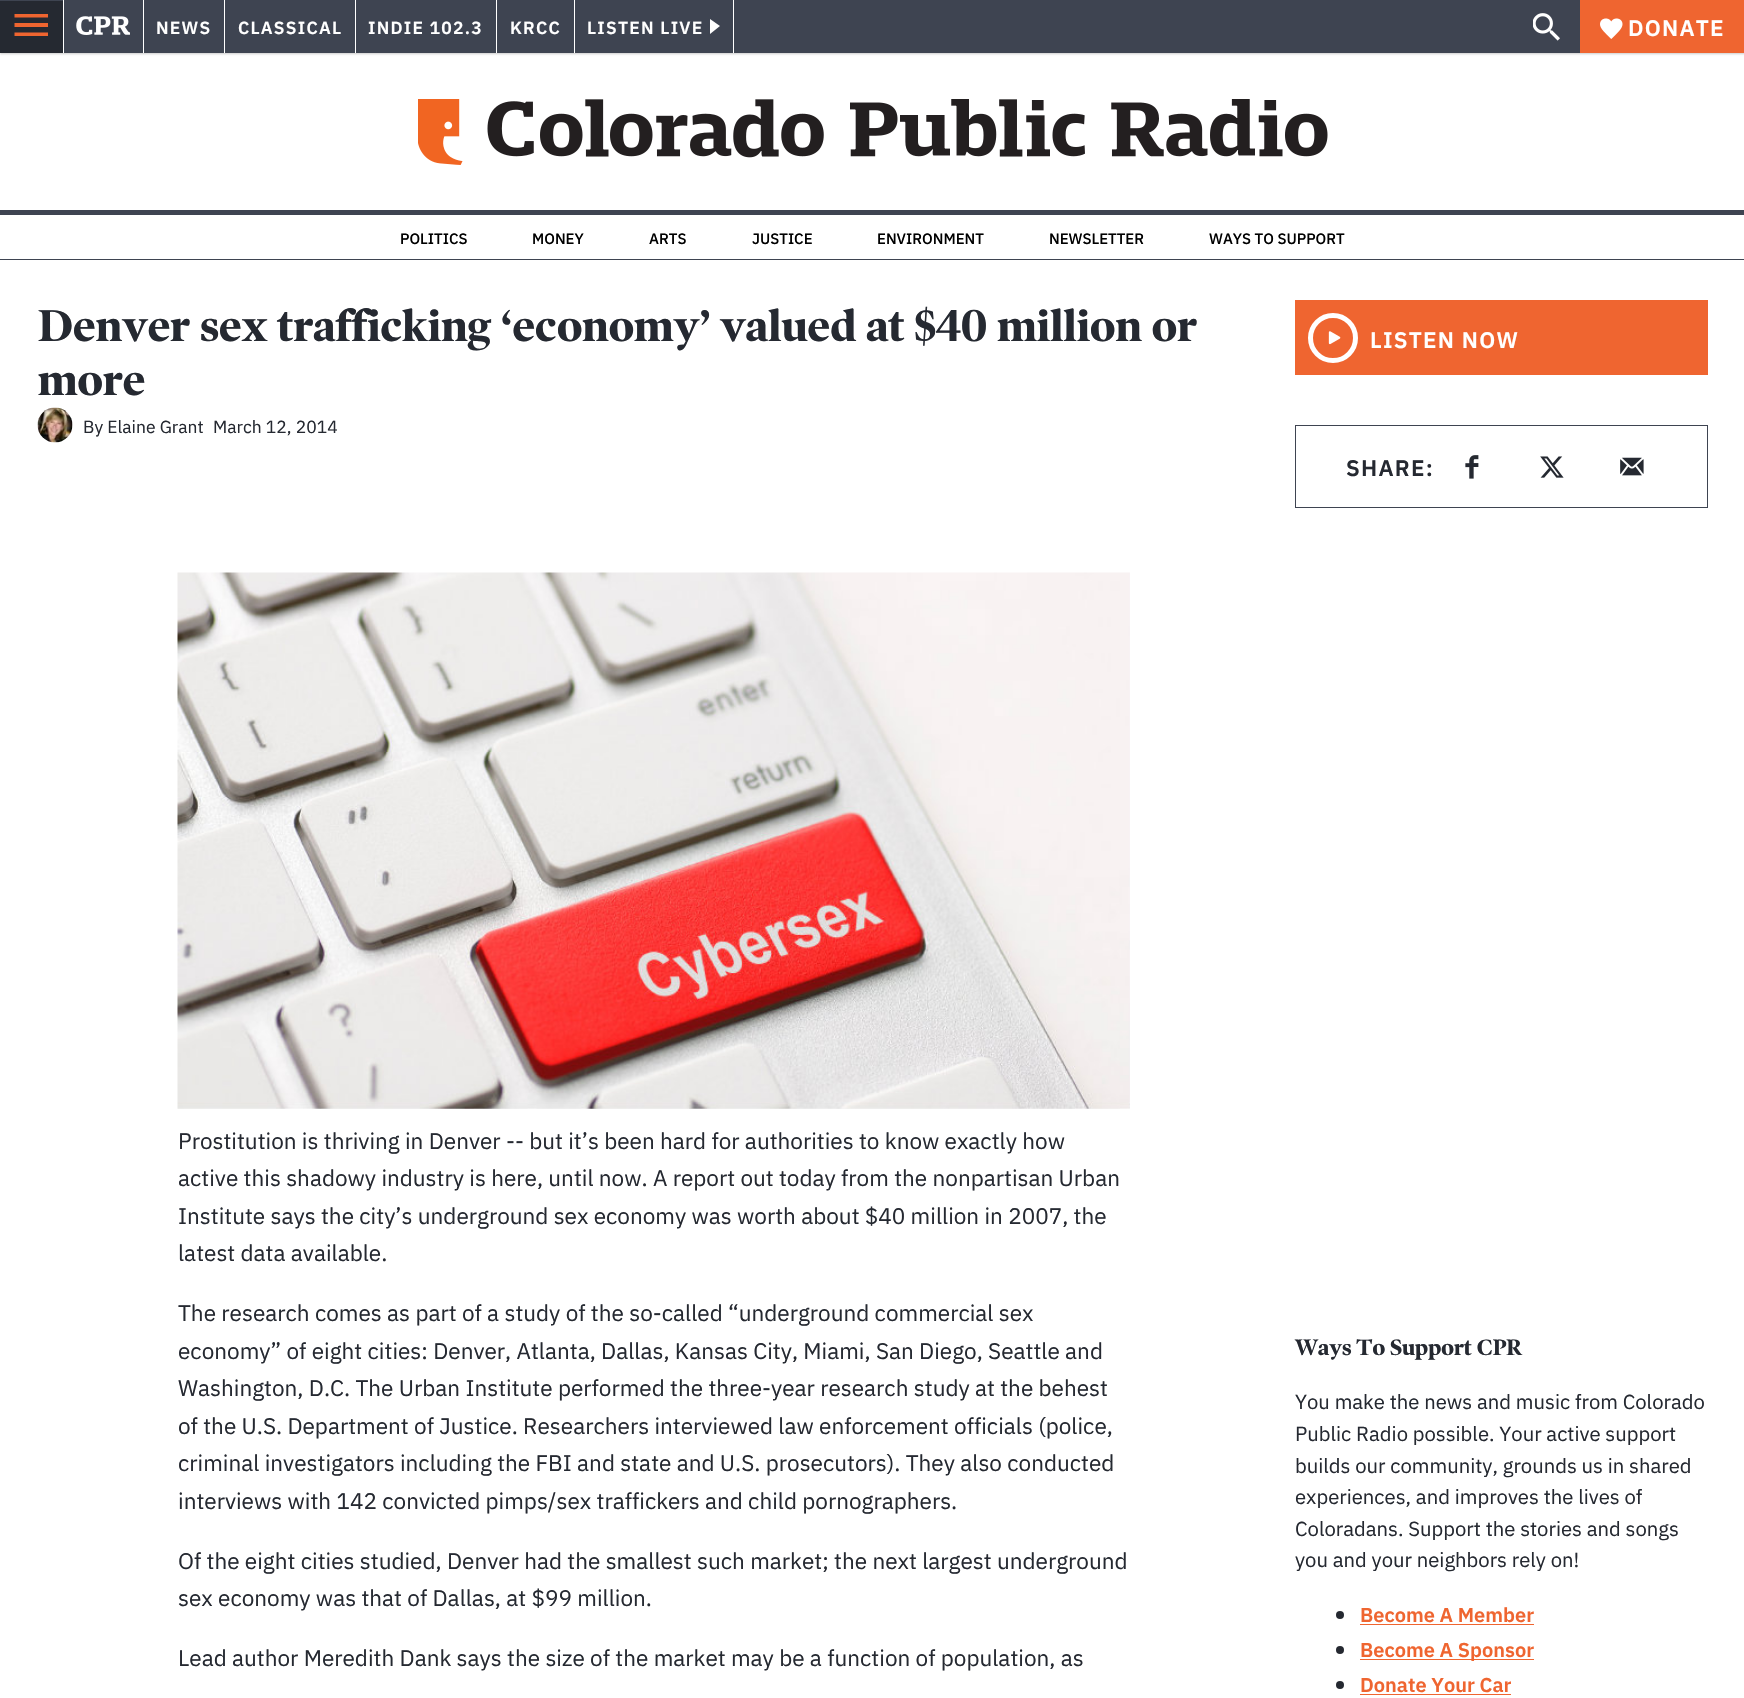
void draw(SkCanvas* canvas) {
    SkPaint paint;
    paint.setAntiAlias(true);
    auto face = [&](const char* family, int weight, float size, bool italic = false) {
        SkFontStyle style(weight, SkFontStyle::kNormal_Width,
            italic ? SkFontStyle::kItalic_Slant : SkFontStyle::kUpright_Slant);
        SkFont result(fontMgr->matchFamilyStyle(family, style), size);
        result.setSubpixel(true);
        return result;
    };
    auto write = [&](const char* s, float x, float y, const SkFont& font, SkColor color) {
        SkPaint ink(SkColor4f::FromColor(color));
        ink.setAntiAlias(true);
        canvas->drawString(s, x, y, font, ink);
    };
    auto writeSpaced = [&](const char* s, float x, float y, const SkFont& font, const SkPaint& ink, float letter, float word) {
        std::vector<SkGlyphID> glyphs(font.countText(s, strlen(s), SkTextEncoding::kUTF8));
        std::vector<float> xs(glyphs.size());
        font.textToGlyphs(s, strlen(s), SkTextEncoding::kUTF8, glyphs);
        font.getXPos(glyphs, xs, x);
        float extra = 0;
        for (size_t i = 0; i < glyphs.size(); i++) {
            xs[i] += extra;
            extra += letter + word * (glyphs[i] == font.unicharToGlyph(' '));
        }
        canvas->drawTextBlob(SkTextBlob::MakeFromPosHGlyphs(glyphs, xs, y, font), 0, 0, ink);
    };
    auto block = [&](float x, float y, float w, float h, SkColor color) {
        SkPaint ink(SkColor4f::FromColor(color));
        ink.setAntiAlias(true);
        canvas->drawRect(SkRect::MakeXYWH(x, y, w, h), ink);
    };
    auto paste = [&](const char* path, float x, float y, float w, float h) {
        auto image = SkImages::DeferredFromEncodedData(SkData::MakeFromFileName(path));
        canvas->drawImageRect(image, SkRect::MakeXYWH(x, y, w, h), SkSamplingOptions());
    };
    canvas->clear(SK_ColorWHITE);
    paint.setColor(SkColorSetARGB(51, 0, 0, 0));
    paint.setMaskFilter(SkMaskFilter::MakeBlur(kNormal_SkBlurStyle, 1));
    canvas->drawRect(SkRect::MakeXYWH(0, 1, 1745, 53), paint);
    paint.setMaskFilter(nullptr);
    block(0, 0, 1580, 53, SkColorSetRGB(62, 68, 81));
    block(0, 1, 63, 52, SkColorSetRGB(37, 41, 49));
    paint.setColor(SkColorSetRGB(239, 101, 48));
    canvas->drawPath(SkPathBuilder().moveTo(14.5f, 36).lineTo(48, 36).lineTo(48, 32.5f).lineTo(14.5f, 32.5f).close().moveTo(14.5f, 27).lineTo(48, 27).lineTo(48, 23).lineTo(14.5f, 23).close().moveTo(14.5f, 14).lineTo(14.5f, 17.5f).lineTo(48, 17.5f).lineTo(48, 14).close().detach(), paint);
    block(143, 0, 1, 53, SK_ColorWHITE);
    block(63, 0, 1, 53, SK_ColorWHITE);
    paste("pic1.png", 76, 16, 54, 19);
    block(224, 0, 1, 53, SK_ColorWHITE);
    auto kFont1 = face("IBM Plex Sans", 600, 17.5f);
    paint.setColor(SK_ColorWHITE);
    writeSpaced("NEWS", 156, 34, kFont1, paint, 1.25f, 0);
    block(355, 0, 1, 53, SK_ColorWHITE);
    writeSpaced("CLASSICAL", 238, 34, kFont1, paint, 1.25f, 0);
    block(496, 0, 1, 53, SK_ColorWHITE);
    writeSpaced("INDIE 102.3", 368, 34, kFont1, paint, 1.25f, 0);
    block(574, 0, 1, 53, SK_ColorWHITE);
    writeSpaced("KRCC", 510, 34, kFont1, paint, 1.25f, 0);
    block(733, 0, 1, 53, SK_ColorWHITE);
    writeSpaced("LISTEN LIVE", 587, 34, kFont1, paint, 1.25f, 0);
    canvas->drawPath(SkPathBuilder().moveTo(710, 34).lineTo(710, 19).lineTo(720, 26).close().detach(), paint);
    paste("pic2.png", 1533, 13, 27, 28);
    block(1580, 0, 164, 53, SkColorSetRGB(239, 101, 48));
    paste("pic3.png", 1600, 18, 23, 21);
    auto kFont2 = face("IBM Plex Sans", 600, 22.5f);
    writeSpaced("DONATE", 1628, 36, kFont2, paint, 1.25f, 0);
    block(0, 210, 1744, 5, SkColorSetRGB(62, 68, 81));
    paste("pic4.png", 418, 99, 910, 66);
    block(0, 259, 1744, 1, SkColorSetRGB(62, 68, 81));
    auto kFont3 = face("IBM Plex Sans", 500, 15);
    write("POLITICS", 400, 244, kFont3, SK_ColorBLACK);
    write("MONEY", 532, 244, kFont3, SK_ColorBLACK);
    write("ARTS", 649, 244, kFont3, SK_ColorBLACK);
    write("JUSTICE", 752, 244, kFont3, SK_ColorBLACK);
    write("ENVIRONMENT", 877, 244, kFont3, SK_ColorBLACK);
    write("NEWSLETTER", 1049, 244, kFont3, SK_ColorBLACK);
    write("WAYS TO SUPPORT", 1209, 244, kFont3, SK_ColorBLACK);
    auto kFont4 = face("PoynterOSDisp", 700, 45);
    write("Denver sex trafficking ‘economy’ valued at $40 million or", 38, 341, kFont4, SkColorSetRGB(37, 41, 49));
    write("more", 38, 395, kFont4, SkColorSetRGB(37, 41, 49));
    paste("pic5.png", 37, 407, 36, 36);
    auto kFont5 = face("IBM Plex Sans", 400, 17.5f);
    write("By Elaine Grant", 83, 433, kFont5, SkColorSetRGB(37, 41, 49));
    write("March 12, 2014", 213, 433, kFont5, SkColorSetRGB(37, 41, 49));
    block(1295, 300, 413, 75, SkColorSetRGB(239, 101, 48));
    paint.setStyle(SkPaint::kStroke_Style);
    paint.setStrokeWidth(5);
    canvas->drawCircle(1333, 338, 22.5f, paint);
    paste("pic6.png", 1328, 331, 13, 14);
    paint.setStyle(SkPaint::kFill_Style);
    writeSpaced("LISTEN NOW", 1370, 348, kFont2, paint, 1.25f, 0);
    paint.setStyle(SkPaint::kStroke_Style);
    paint.setStrokeWidth(1);
    paint.setColor(SkColorSetRGB(62, 68, 81));
    canvas->drawRect(SkRect::MakeXYWH(1295.5f, 425.5f, 412, 82), paint);
    paint.setStyle(SkPaint::kFill_Style);
    paint.setColor(SkColorSetRGB(37, 41, 49));
    writeSpaced("SHARE:", 1346, 476, kFont2, paint, 1.25f, 0);
    paste("pic7.png", 1465, 455, 14, 24);
    paste("pic8.png", 1540, 456, 24, 22);
    paste("pic9.png", 1620, 457, 24, 19);
    paste("pic10.png", 177, 572, 953, 537);
    auto kFont6 = face("IBM Plex Sans", 400, 22.5f);
    write("Prostitution is thriving in Denver -- but it’s been hard for authorities to know exactly how", 178, 1149, kFont6, SkColorSetRGB(37, 41, 49));
    write("active this shadowy industry is here, until now. A report out today from the nonpartisan Urban", 178, 1186, kFont6, SkColorSetRGB(37, 41, 49));
    write("Institute says the city’s underground sex economy was worth about $40 million in 2007, the", 178, 1224, kFont6, SkColorSetRGB(37, 41, 49));
    write("latest data available.", 178, 1261, kFont6, SkColorSetRGB(37, 41, 49));
    write("The research comes as part of a study of the so-called “underground commercial sex", 178, 1321, kFont6, SkColorSetRGB(37, 41, 49));
    write("economy” of eight cities: Denver, Atlanta, Dallas, Kansas City, Miami, San Diego, Seattle and", 178, 1359, kFont6, SkColorSetRGB(37, 41, 49));
    write("Washington, D.C. The Urban Institute performed the three-year research study at the behest", 178, 1396, kFont6, SkColorSetRGB(37, 41, 49));
    write("of the U.S. Department of Justice. Researchers interviewed law enforcement officials (police,", 178, 1434, kFont6, SkColorSetRGB(37, 41, 49));
    write("criminal investigators including the FBI and state and U.S. prosecutors). They also conducted", 178, 1471, kFont6, SkColorSetRGB(37, 41, 49));
    write("interviews with 142 convicted pimps/sex traffickers and child pornographers.", 178, 1509, kFont6, SkColorSetRGB(37, 41, 49));
    write("Of the eight cities studied, Denver had the smallest such market; the next largest underground", 178, 1569, kFont6, SkColorSetRGB(37, 41, 49));
    write("sex economy was that of Dallas, at $99 million.", 178, 1606, kFont6, SkColorSetRGB(37, 41, 49));
    write("Lead author Meredith Dank says the size of the market may be a function of population, as", 178, 1666, kFont6, SkColorSetRGB(37, 41, 49));
    auto kFont7 = face("PoynterOSDisp", 700, 22.5f);
    write("Ways To Support CPR", 1295, 1355, kFont7, SkColorSetRGB(37, 41, 49));
    auto kFont8 = face("IBM Plex Sans", 400, 20.25f);
    write("You make the news and music from Colorado", 1295, 1409, kFont8, SkColorSetRGB(37, 41, 49));
    write("Public Radio possible. Your active support", 1295, 1441, kFont8, SkColorSetRGB(37, 41, 49));
    write("builds our community, grounds us in shared", 1295, 1473, kFont8, SkColorSetRGB(37, 41, 49));
    write("experiences, and improves the lives of", 1295, 1504, kFont8, SkColorSetRGB(37, 41, 49));
    write("Coloradans. Support the stories and songs", 1295, 1536, kFont8, SkColorSetRGB(37, 41, 49));
    write("you and your neighbors rely on!", 1295, 1567, kFont8, SkColorSetRGB(37, 41, 49));
    canvas->drawCircle(1340, 1615, 4, paint);
    auto kFont9 = face("IBM Plex Sans", 600, 20);
    write("Become A Member", 1360, 1622, kFont9, SkColorSetRGB(239, 101, 48));
    block(1360, 1624, 174, 1, SkColorSetRGB(239, 101, 48));
    canvas->drawCircle(1340, 1650, 4, paint);
    block(1360, 1659, 174, 1, SkColorSetRGB(239, 101, 48));
    write("Become A Sponsor", 1360, 1657, kFont9, SkColorSetRGB(239, 101, 48));
    canvas->drawCircle(1340, 1685, 4, paint);
    write("Donate Your Car", 1360, 1692, kFont9, SkColorSetRGB(239, 101, 48));
    block(1360, 1694, 151, 1, SkColorSetRGB(239, 101, 48));
}
